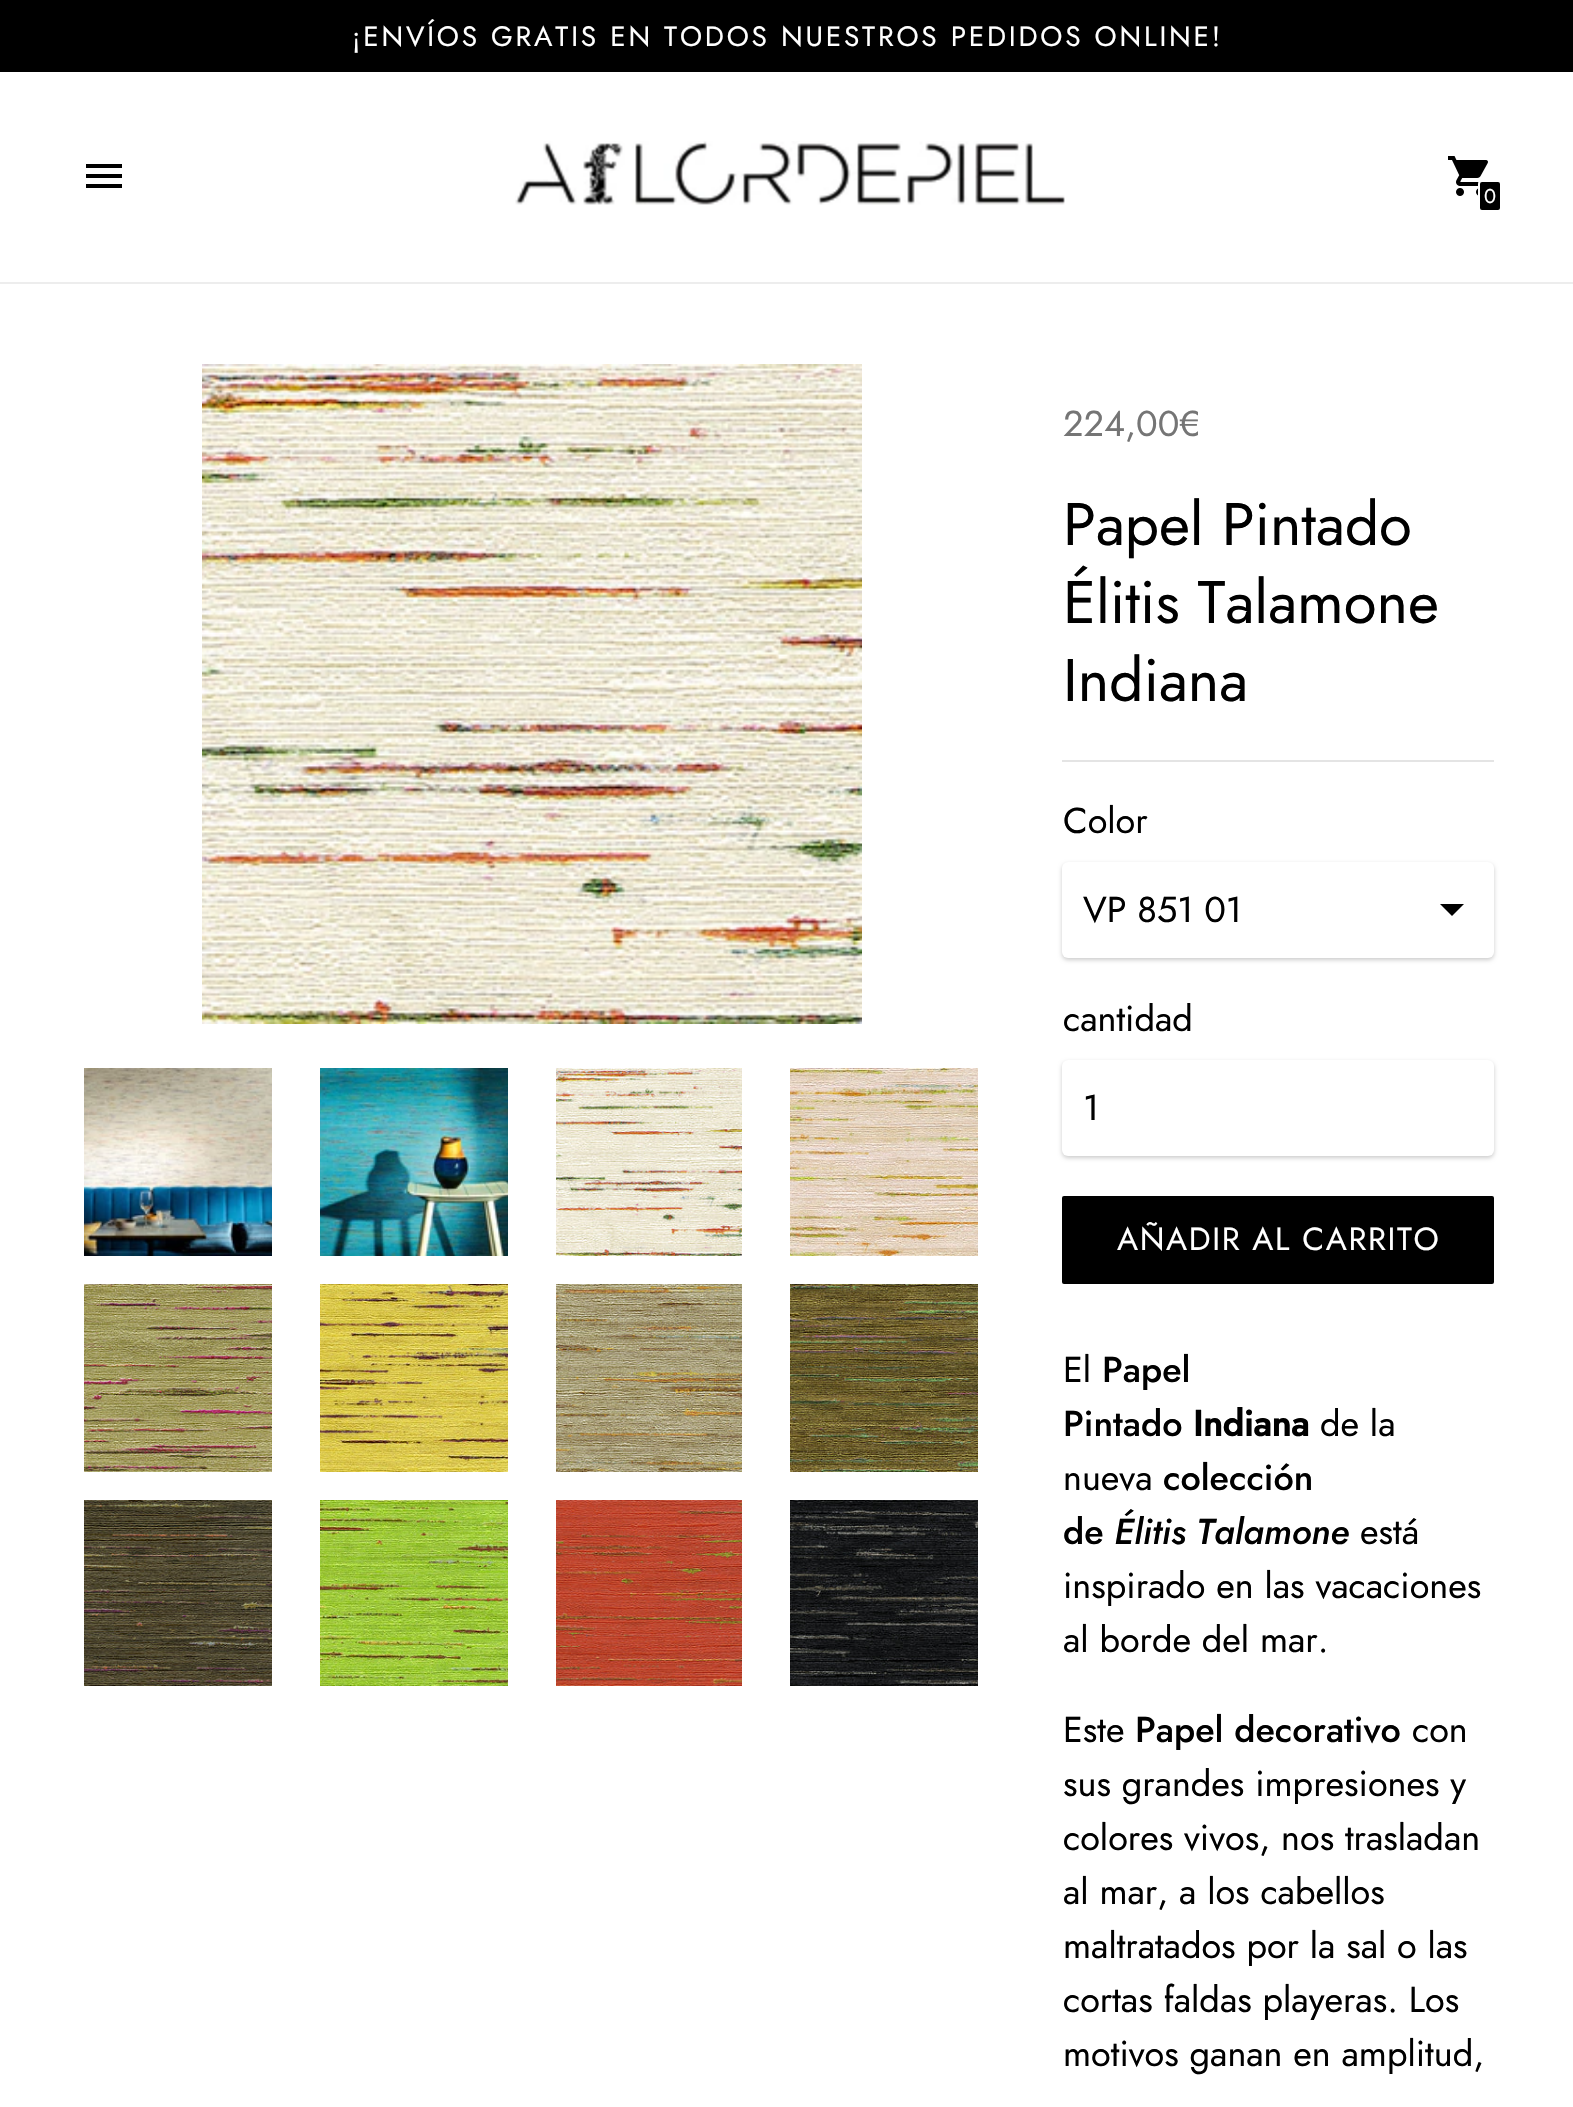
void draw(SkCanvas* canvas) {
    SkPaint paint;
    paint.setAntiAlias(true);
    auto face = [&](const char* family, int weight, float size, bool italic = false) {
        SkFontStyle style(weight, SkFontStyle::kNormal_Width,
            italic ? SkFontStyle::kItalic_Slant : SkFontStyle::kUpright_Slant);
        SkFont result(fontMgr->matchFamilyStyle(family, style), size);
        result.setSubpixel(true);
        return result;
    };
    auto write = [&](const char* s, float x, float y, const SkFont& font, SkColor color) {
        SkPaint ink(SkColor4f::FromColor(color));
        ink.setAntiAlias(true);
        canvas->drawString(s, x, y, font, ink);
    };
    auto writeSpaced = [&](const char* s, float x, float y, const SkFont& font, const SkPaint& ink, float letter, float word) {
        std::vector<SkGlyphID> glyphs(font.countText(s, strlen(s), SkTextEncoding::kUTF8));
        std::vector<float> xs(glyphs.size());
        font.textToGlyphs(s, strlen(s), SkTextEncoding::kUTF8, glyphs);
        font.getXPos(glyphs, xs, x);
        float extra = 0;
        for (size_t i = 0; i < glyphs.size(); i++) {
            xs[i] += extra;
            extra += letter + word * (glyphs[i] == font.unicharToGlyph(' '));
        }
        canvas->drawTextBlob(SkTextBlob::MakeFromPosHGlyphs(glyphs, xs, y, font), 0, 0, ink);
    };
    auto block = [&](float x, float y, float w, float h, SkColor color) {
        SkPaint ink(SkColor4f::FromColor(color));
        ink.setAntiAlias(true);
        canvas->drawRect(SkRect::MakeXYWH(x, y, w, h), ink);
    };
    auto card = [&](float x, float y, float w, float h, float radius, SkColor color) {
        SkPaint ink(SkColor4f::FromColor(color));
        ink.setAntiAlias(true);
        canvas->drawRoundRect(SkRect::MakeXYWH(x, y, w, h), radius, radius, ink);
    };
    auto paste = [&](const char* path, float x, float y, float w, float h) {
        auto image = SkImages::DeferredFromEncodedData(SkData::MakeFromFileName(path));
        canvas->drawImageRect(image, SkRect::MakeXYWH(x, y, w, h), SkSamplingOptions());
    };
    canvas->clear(SK_ColorWHITE);
    block(0, 0, 1573, 72, SK_ColorBLACK);
    auto kFont1 = face("Jost", 400, 28);
    paint.setColor(SK_ColorWHITE);
    writeSpaced("¡ENVÍOS GRATIS EN TODOS NUESTROS PEDIDOS ONLINE!", 352, 46, kFont1, paint, 2.8f, 0);
    block(0, 282, 1573, 2, SkColorSetRGB(237, 237, 237));
    paint.setColor(SK_ColorBLACK);
    canvas->drawPath(SkPathBuilder().moveTo(86, 188).lineTo(122, 188).lineTo(122, 184).lineTo(86, 184).close().moveTo(86, 178).lineTo(122, 178).lineTo(122, 174).lineTo(86, 174).close().moveTo(86, 164).lineTo(86, 168).lineTo(122, 168).lineTo(122, 164).close().detach(), paint);
    paste("pic1.png", 515, 141, 550, 64);
    paste("pic2.png", 1448, 156, 40, 40);
    canvas->drawRoundRect(SkRect::MakeXYWH(1479, 181, 22, 30), 3, 3, paint);
    paint.setStyle(SkPaint::kStroke_Style);
    paint.setStrokeWidth(2);
    paint.setColor(SK_ColorWHITE);
    canvas->drawRoundRect(SkRect::MakeXYWH(1479, 181, 22, 30), 3, 3, paint);
    auto kFont2 = face("Jost", 400, 20);
    write("0", 1484, 203, kFont2, SK_ColorWHITE);
    paste("pic3.png", 202, 364, 660, 660);
    paste("pic4.png", 84, 1068, 188, 188);
    paste("pic5.png", 320, 1068, 188, 188);
    paste("pic6.png", 556, 1068, 186, 188);
    paste("pic7.png", 790, 1068, 188, 188);
    paste("pic8.png", 84, 1284, 188, 188);
    paste("pic9.png", 320, 1284, 188, 188);
    paste("pic10.png", 556, 1284, 186, 188);
    paste("pic11.png", 790, 1284, 188, 188);
    paste("pic12.png", 84, 1500, 188, 186);
    paste("pic13.png", 320, 1500, 188, 186);
    paste("pic14.png", 556, 1500, 186, 186);
    paste("pic15.png", 790, 1500, 188, 186);
    block(1062, 760, 432, 2, SkColorSetRGB(228, 228, 228));
    auto kFont3 = face("Jost", 400, 36);
    write("224,00€", 1063, 436, kFont3, SkColorSetRGB(117, 117, 117));
    auto kFont4 = face("Jost", 400, 60);
    write("Papel Pintado", 1063, 545, kFont4, SK_ColorBLACK);
    write("Élitis Talamone", 1063, 623, kFont4, SK_ColorBLACK);
    write("Indiana", 1063, 701, kFont4, SK_ColorBLACK);
    write("Color", 1063, 833, kFont3, SK_ColorBLACK);
    paint.setStyle(SkPaint::kFill_Style);
    paint.setColor(SkColorSetARGB(51, 0, 0, 0));
    paint.setMaskFilter(SkMaskFilter::MakeBlur(kNormal_SkBlurStyle, 2));
    canvas->drawRoundRect(SkRect::MakeXYWH(1062, 864, 432, 96), 6, 6, paint);
    paint.setMaskFilter(nullptr);
    card(1062, 862, 432, 96, 6, SK_ColorWHITE);
    write("VP 851 01", 1083, 922, kFont3, SK_ColorBLACK);
    paint.setColor(SK_ColorBLACK);
    canvas->drawPath(SkPathBuilder().moveTo(1440, 904).lineTo(1464, 904).lineTo(1452, 916).close().detach(), paint);
    write("cantidad", 1063, 1031, kFont3, SK_ColorBLACK);
    paint.setColor(SkColorSetARGB(51, 0, 0, 0));
    paint.setMaskFilter(SkMaskFilter::MakeBlur(kNormal_SkBlurStyle, 2));
    canvas->drawRoundRect(SkRect::MakeXYWH(1062, 1062, 432, 96), 6, 6, paint);
    paint.setMaskFilter(nullptr);
    card(1062, 1060, 432, 96, 6, SK_ColorWHITE);
    write("1", 1083, 1120, kFont3, SK_ColorBLACK);
    card(1062, 1196, 432, 88, 2, SK_ColorBLACK);
    auto kFont5 = face("Jost", 400, 32);
    paint.setColor(SK_ColorWHITE);
    writeSpaced("AÑADIR AL CARRITO", 1117, 1250, kFont5, paint, 1.6f, 0);
    write("El", 1063, 1382, kFont3, SK_ColorBLACK);
    auto kFont6 = face("Jost", 500, 36);
    write("Papel", 1102, 1382, kFont6, SK_ColorBLACK);
    write("Pintado", 1063, 1436, kFont6, SK_ColorBLACK);
    auto kFont7 = face("Jost", 700, 36);
    write("Indiana", 1193, 1436, kFont7, SK_ColorBLACK);
    write("de la", 1320, 1436, kFont3, SK_ColorBLACK);
    write("nueva", 1063, 1490, kFont3, SK_ColorBLACK);
    write("colección", 1163, 1490, kFont6, SK_ColorBLACK);
    write("de", 1063, 1544, kFont6, SK_ColorBLACK);
    auto kFont8 = face("Jost", 500, 36, true);
    write("Élitis Talamone", 1114, 1544, kFont8, SK_ColorBLACK);
    write("está", 1360, 1544, kFont3, SK_ColorBLACK);
    write("inspirado en las vacaciones", 1063, 1598, kFont3, SK_ColorBLACK);
    write("al borde del mar.", 1063, 1652, kFont3, SK_ColorBLACK);
    write("Este", 1063, 1742, kFont3, SK_ColorBLACK);
    write("Papel decorativo", 1135, 1742, kFont6, SK_ColorBLACK);
    write("con", 1412, 1742, kFont3, SK_ColorBLACK);
    write("sus grandes impresiones y", 1063, 1796, kFont3, SK_ColorBLACK);
    write("colores vivos, nos trasladan", 1063, 1850, kFont3, SK_ColorBLACK);
    write("al mar, a los cabellos", 1063, 1904, kFont3, SK_ColorBLACK);
    write("maltratados por la sal o las", 1063, 1958, kFont3, SK_ColorBLACK);
    write("cortas faldas playeras. Los", 1063, 2012, kFont3, SK_ColorBLACK);
    write("motivos ganan en amplitud,", 1063, 2066, kFont3, SK_ColorBLACK);
}
